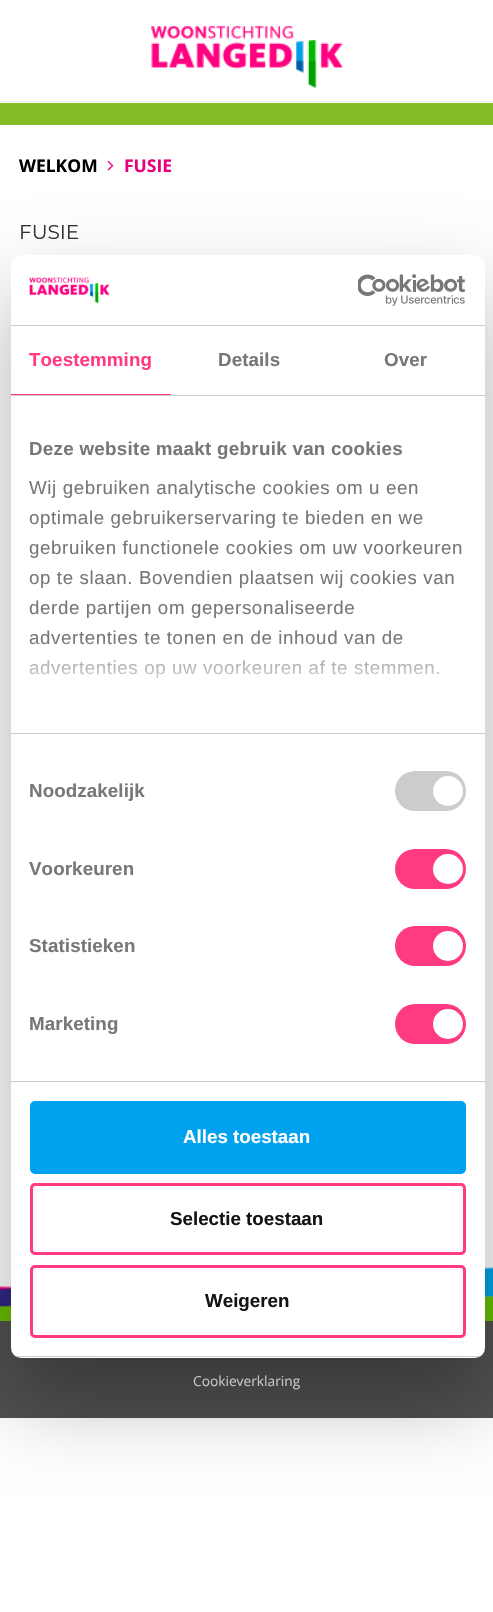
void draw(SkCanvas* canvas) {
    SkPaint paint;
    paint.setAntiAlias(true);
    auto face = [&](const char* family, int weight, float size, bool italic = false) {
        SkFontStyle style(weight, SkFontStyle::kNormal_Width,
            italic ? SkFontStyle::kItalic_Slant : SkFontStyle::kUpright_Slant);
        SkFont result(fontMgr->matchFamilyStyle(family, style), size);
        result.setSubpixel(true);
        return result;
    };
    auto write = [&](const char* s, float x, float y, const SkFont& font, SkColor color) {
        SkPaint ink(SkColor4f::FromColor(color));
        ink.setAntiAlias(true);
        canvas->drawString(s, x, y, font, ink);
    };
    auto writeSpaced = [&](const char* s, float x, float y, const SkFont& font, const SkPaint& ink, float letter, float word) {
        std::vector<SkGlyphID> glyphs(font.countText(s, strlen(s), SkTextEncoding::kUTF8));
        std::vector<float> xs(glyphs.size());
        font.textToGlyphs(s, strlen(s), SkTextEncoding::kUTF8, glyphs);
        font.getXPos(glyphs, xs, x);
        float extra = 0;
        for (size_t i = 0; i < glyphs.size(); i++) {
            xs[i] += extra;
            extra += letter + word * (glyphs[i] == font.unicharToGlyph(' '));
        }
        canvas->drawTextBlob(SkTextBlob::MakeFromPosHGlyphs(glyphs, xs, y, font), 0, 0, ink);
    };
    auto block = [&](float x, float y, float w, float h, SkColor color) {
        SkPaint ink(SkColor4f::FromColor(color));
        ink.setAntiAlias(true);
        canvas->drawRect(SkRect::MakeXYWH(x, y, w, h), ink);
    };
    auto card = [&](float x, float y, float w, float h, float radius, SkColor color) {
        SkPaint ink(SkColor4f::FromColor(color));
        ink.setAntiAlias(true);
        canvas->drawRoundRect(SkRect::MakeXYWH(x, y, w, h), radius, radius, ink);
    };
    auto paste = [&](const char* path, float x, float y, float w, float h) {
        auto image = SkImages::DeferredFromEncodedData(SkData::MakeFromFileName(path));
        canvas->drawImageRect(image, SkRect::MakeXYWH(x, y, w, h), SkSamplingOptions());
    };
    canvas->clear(SK_ColorWHITE);
    block(0, 101, 493, 1, SkColorSetRGB(238, 238, 238));
    paste("pic1.png", 151, 26, 192, 62);
    block(0, 103, 493, 22, SkColorSetRGB(133, 188, 37));
    auto kFont1 = face("Open Sans", 700, 17.5f);
    write("WELKOM", 19, 172, kFont1, SK_ColorBLACK);
    paste("pic2.png", 107, 160, 7, 11);
    write("FUSIE", 124, 172, kFont1, SkColorSetRGB(230, 0, 126));
    auto kFont2 = face("Montserrat", 400, 20);
    write("FUSIE", 19, 239, kFont2, SkColorSetRGB(51, 51, 51));
    paste("pic5.png", 0, 1267, 493, 54);
    block(0, 1321, 493, 97, SkColorSetRGB(80, 80, 80));
    paint.setColor(SkColorSetARGB(77, 0, 0, 0));
    paint.setMaskFilter(SkMaskFilter::MakeBlur(kNormal_SkBlurStyle, 42.5f));
    canvas->drawRoundRect(SkRect::MakeXYWH(11, 295, 474, 1103), 10, 10, paint);
    paint.setMaskFilter(nullptr);
    card(11, 255, 474, 1103, 10, SK_ColorWHITE);
    block(11, 325, 474, 1, SkColorSetRGB(204, 204, 204));
    paste("pic3.png", 29, 277, 81, 27);
    paste("pic4.png", 358, 274, 108, 32);
    block(11, 395, 474, 1, SkColorSetRGB(204, 204, 204));
    block(11, 394, 160, 1, SkColorSetRGB(255, 57, 130));
    auto kFont3 = face("Liberation Sans", 700, 18.75f);
    paint.setColor(SkColorSetRGB(255, 57, 130));
    writeSpaced("Toestemming", 29, 366, kFont3, paint, 0.1f, 0);
    paint.setColor(SkColorSetRGB(119, 119, 119));
    writeSpaced("Details", 218, 366, kFont3, paint, 0.1f, 0);
    writeSpaced("Over", 384, 366, kFont3, paint, 0.1f, 0);
    block(11, 733, 474, 1, SkColorSetRGB(204, 204, 204));
    writeSpaced("Deze website maakt gebruik van cookies", 29, 455, kFont3, paint, 0.3f, 0);
    auto kFont4 = face("Liberation Sans", 400, 18.75f);
    writeSpaced("Wij gebruiken analytische cookies om u een", 29, 494, kFont4, paint, 0.6f, 0);
    writeSpaced("optimale gebruikerservaring te bieden en we", 29, 524, kFont4, paint, 0.6f, 0);
    writeSpaced("gebruiken functionele cookies om uw voorkeuren", 29, 554, kFont4, paint, 0.6f, 0);
    writeSpaced("op te slaan. Bovendien plaatsen wij cookies van", 29, 584, kFont4, paint, 0.6f, 0);
    writeSpaced("derde partijen om gepersonaliseerde", 29, 614, kFont4, paint, 0.6f, 0);
    writeSpaced("advertenties te tonen en de inhoud van de", 29, 644, kFont4, paint, 0.6f, 0);
    writeSpaced("advertenties op uw voorkeuren af te stemmen.", 29, 674, kFont4, paint, 0.6f, 0);
    {
        const SkColor colors[] = {SK_ColorWHITE, SkColorSetARGB(204, 255, 255, 255), SkColorSetARGB(0, 255, 255, 255)};
        const float stops[] = {0, 0.5f, 1};
        const SkPoint ends[] = {{239, 733}, {239, 639}};
        paint.setShader(SkGradientShader::MakeLinear(ends, colors, stops, 3, SkTileMode::kClamp));
        paint.setAlpha(255);
    }
    canvas->drawRect(SkRect::MakeXYWH(29, 640, 411, 38), paint);
    block(11, 1081, 474, 1, SkColorSetRGB(204, 204, 204));
    paint.setShader(nullptr);
    paint.setColor(SkColorSetRGB(119, 119, 119));
    writeSpaced("Noodzakelijk", 29, 797, kFont3, paint, 0.1f, 0);
    card(395, 771, 71, 40, 20, SkColorSetRGB(204, 204, 204));
    paint.setColor(SK_ColorWHITE);
    canvas->drawCircle(448, 791, 15, paint);
    paint.setColor(SkColorSetRGB(119, 119, 119));
    writeSpaced("Voorkeuren", 29, 875, kFont3, paint, 0.1f, 0);
    card(395, 849, 71, 40, 20, SkColorSetRGB(255, 57, 130));
    paint.setColor(SK_ColorWHITE);
    canvas->drawCircle(448, 869, 15, paint);
    paint.setColor(SkColorSetRGB(119, 119, 119));
    writeSpaced("Statistieken", 29, 952, kFont3, paint, 0.1f, 0);
    card(395, 926, 71, 40, 20, SkColorSetRGB(255, 57, 130));
    paint.setColor(SK_ColorWHITE);
    canvas->drawCircle(448, 946, 15, paint);
    paint.setColor(SkColorSetRGB(119, 119, 119));
    writeSpaced("Marketing", 29, 1030, kFont3, paint, 0.1f, 0);
    card(395, 1004, 71, 40, 20, SkColorSetRGB(255, 57, 130));
    paint.setColor(SK_ColorWHITE);
    canvas->drawCircle(448, 1024, 15, paint);
    canvas->save();
    canvas->clipPath(SkPathBuilder().moveTo(21, 255).lineTo(475, 255).cubicTo(480.5f, 255, 485, 259.5f, 485, 265).lineTo(485, 1348).cubicTo(485, 1353.5f, 480.5f, 1358, 475, 1358).lineTo(21, 1358).cubicTo(15.5f, 1358, 11, 1353.5f, 11, 1348).lineTo(11, 265).cubicTo(11, 259.5f, 15.5f, 255, 21, 255).close().detach(), true);
    block(11, 1356, 474, 1, SkColorSetRGB(204, 204, 204));
    canvas->restore();
    paint.setColor(SkColorSetRGB(0, 161, 238));
    canvas->drawRoundRect(SkRect::MakeXYWH(31.5f, 1102.5f, 433, 70), 3.5f, 3.5f, paint);
    paint.setStyle(SkPaint::kStroke_Style);
    paint.setStrokeWidth(3);
    canvas->drawRoundRect(SkRect::MakeXYWH(31.5f, 1102.5f, 433, 70), 3.5f, 3.5f, paint);
    write("Alles toestaan", 183, 1143, kFont3, SK_ColorWHITE);
    paint.setColor(SkColorSetRGB(255, 57, 130));
    canvas->drawRoundRect(SkRect::MakeXYWH(31.5f, 1184.5f, 433, 69), 3.5f, 3.5f, paint);
    write("Selectie toestaan", 170, 1225, kFont3, SkColorSetRGB(20, 20, 20));
    canvas->drawRoundRect(SkRect::MakeXYWH(31.5f, 1266.5f, 433, 70), 3.5f, 3.5f, paint);
    write("Weigeren", 205, 1307, kFont3, SkColorSetRGB(20, 20, 20));
    auto kFont5 = face("Open Sans", 400, 13.75f);
    write("Cookieverklaring", 193, 1386, kFont5, SkColorSetRGB(197, 197, 197));
}
